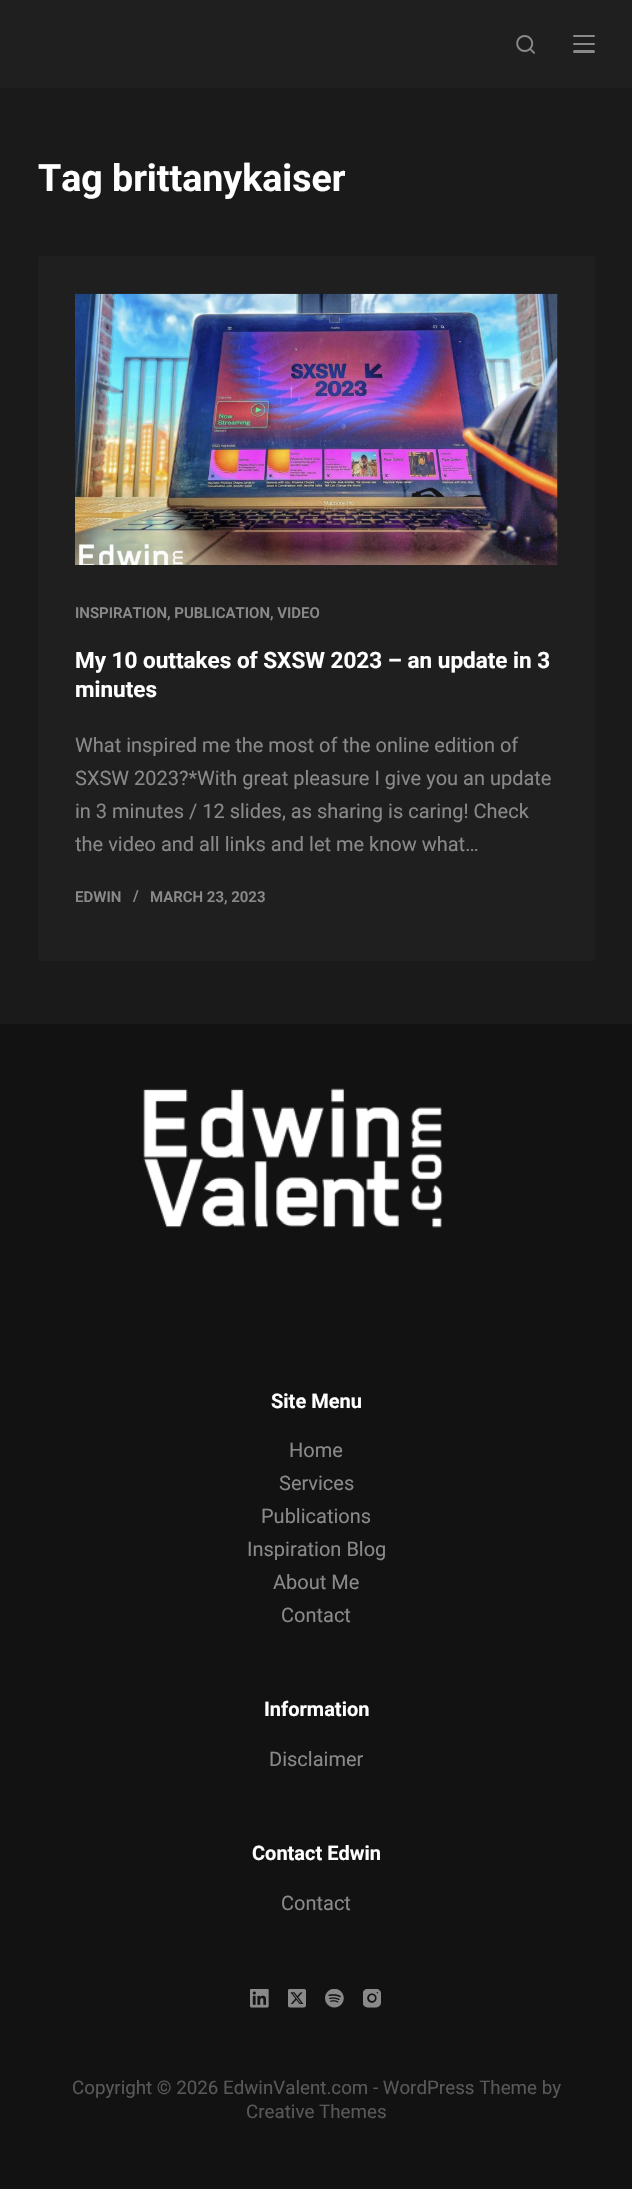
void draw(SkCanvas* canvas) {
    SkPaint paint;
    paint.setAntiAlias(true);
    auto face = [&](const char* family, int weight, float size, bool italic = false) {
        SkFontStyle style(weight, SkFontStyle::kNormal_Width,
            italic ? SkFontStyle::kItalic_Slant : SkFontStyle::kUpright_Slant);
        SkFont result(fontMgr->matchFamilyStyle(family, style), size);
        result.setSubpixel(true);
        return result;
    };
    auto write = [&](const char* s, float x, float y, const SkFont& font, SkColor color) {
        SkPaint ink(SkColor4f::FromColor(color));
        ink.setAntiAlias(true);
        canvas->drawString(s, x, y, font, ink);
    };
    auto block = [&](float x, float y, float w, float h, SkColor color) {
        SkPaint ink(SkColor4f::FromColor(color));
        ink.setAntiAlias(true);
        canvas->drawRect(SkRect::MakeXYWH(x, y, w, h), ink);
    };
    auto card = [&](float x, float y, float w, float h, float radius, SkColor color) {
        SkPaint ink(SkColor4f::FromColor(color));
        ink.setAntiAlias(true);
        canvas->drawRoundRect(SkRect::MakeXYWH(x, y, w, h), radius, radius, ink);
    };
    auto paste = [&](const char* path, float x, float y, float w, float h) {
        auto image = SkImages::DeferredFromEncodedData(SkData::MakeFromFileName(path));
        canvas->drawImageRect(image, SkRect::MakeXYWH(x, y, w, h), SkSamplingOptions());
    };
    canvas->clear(SkColorSetRGB(26, 26, 26));
    block(0, 0, 632, 88, SkColorSetRGB(31, 31, 31));
    paste("pic1.png", 516, 35, 19, 19);
    card(573, 35, 22, 2, 1, SkColorSetRGB(137, 137, 137));
    card(573, 43, 22, 2, 1, SkColorSetRGB(137, 137, 137));
    card(573, 50, 22, 3, 1.5f, SkColorSetRGB(137, 137, 137));
    auto kFont1 = face("Roboto", 700, 37.5f);
    write("Tag brittanykaiser", 38, 191, kFont1, SK_ColorWHITE);
    card(38, 256, 557, 705, 4, SkColorSetRGB(31, 31, 31));
    paste("pic2.png", 75, 293, 483, 272);
    auto kFont2 = face("Roboto", 600, 15);
    write("INSPIRATION, PUBLICATION, VIDEO", 75, 618, kFont2, SkColorSetRGB(137, 137, 137));
    auto kFont3 = face("Roboto", 700, 22.5f);
    write("My 10 outtakes of SXSW 2023 – an update in 3", 75, 668, kFont3, SK_ColorWHITE);
    write("minutes", 75, 697, kFont3, SK_ColorWHITE);
    auto kFont4 = face("Roboto", 400, 20);
    write("What inspired me the most of the online edition of", 75, 752, kFont4, SkColorSetRGB(137, 137, 137));
    write("SXSW 2023?*With great pleasure I give you an update", 75, 785, kFont4, SkColorSetRGB(137, 137, 137));
    write("in 3 minutes / 12 slides, as sharing is caring! Check", 75, 818, kFont4, SkColorSetRGB(137, 137, 137));
    write("the video and all links and let me know what…", 75, 851, kFont4, SkColorSetRGB(137, 137, 137));
    write("EDWIN", 75, 902, kFont2, SkColorSetRGB(137, 137, 137));
    write("/", 133, 901, kFont2, SkColorSetRGB(137, 137, 137));
    write("MARCH 23, 2023", 150, 902, kFont2, SkColorSetRGB(137, 137, 137));
    block(0, 1024, 632, 1165, SkColorSetRGB(18, 18, 18));
    paste("pic3.png", 143, 1088, 300, 140);
    auto kFont5 = face("Roboto", 700, 20);
    write("Site Menu", 271, 1408, kFont5, SK_ColorWHITE);
    write("Home", 289, 1457, kFont4, SkColorSetRGB(137, 137, 137));
    write("Services", 279, 1490, kFont4, SkColorSetRGB(137, 137, 137));
    write("Publications", 261, 1523, kFont4, SkColorSetRGB(137, 137, 137));
    write("Inspiration Blog", 247, 1556, kFont4, SkColorSetRGB(137, 137, 137));
    write("About Me", 273, 1589, kFont4, SkColorSetRGB(137, 137, 137));
    write("Contact", 281, 1622, kFont4, SkColorSetRGB(137, 137, 137));
    write("Information", 264, 1716, kFont5, SK_ColorWHITE);
    write("Disclaimer", 269, 1766, kFont4, SkColorSetRGB(137, 137, 137));
    write("Contact Edwin", 252, 1860, kFont5, SK_ColorWHITE);
    write("Contact", 281, 1910, kFont4, SkColorSetRGB(137, 137, 137));
    paste("pic4.png", 250, 1989, 19, 19);
    paste("pic5.png", 288, 1989, 18, 19);
    paste("pic6.png", 325, 1989, 19, 19);
    paste("pic7.png", 363, 1989, 18, 19);
    auto kFont6 = face("Roboto", 400, 18.75f);
    write("Copyright © 2026 EdwinValent.com - WordPress Theme by", 72, 2094, kFont6, SkColorSetRGB(88, 88, 88));
    write("Creative Themes", 246, 2118, kFont6, SkColorSetRGB(88, 88, 88));
}
